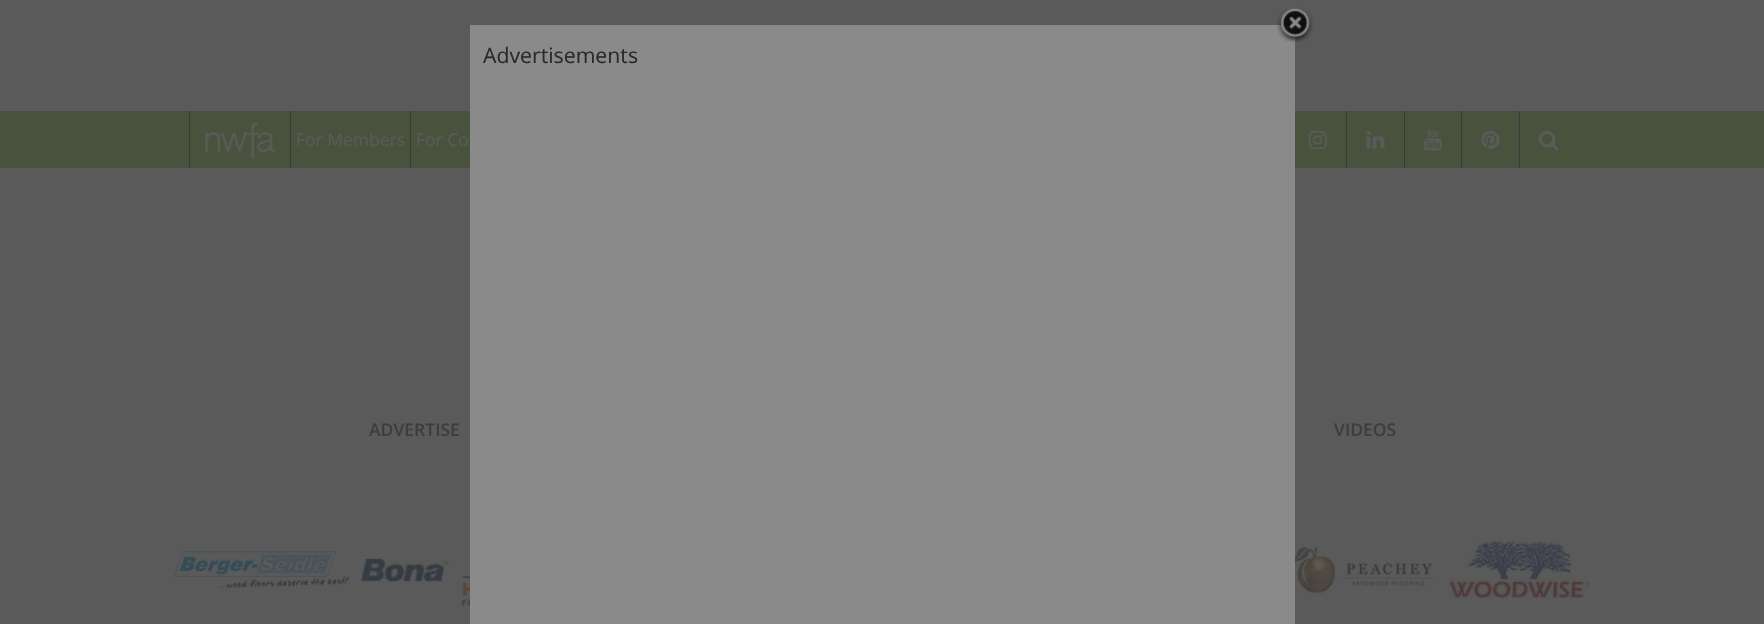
void draw(SkCanvas* canvas) {
    SkPaint paint;
    paint.setAntiAlias(true);
    auto face = [&](const char* family, int weight, float size, bool italic = false) {
        SkFontStyle style(weight, SkFontStyle::kNormal_Width,
            italic ? SkFontStyle::kItalic_Slant : SkFontStyle::kUpright_Slant);
        SkFont result(fontMgr->matchFamilyStyle(family, style), size);
        result.setSubpixel(true);
        return result;
    };
    auto write = [&](const char* s, float x, float y, const SkFont& font, SkColor color) {
        SkPaint ink(SkColor4f::FromColor(color));
        ink.setAntiAlias(true);
        canvas->drawString(s, x, y, font, ink);
    };
    auto block = [&](float x, float y, float w, float h, SkColor color) {
        SkPaint ink(SkColor4f::FromColor(color));
        ink.setAntiAlias(true);
        canvas->drawRect(SkRect::MakeXYWH(x, y, w, h), ink);
    };
    auto paste = [&](const char* path, float x, float y, float w, float h) {
        auto image = SkImages::DeferredFromEncodedData(SkData::MakeFromFileName(path));
        canvas->drawImageRect(image, SkRect::MakeXYWH(x, y, w, h), SkSamplingOptions());
    };
    canvas->clear(SkColorSetRGB(90, 90, 90));
    block(0, 111, 1764, 57, SkColorSetRGB(73, 82, 61));
    block(470, 25, 825, 599, SkColorSetRGB(138, 138, 138));
    paste("pic1.png", 1277, 7, 37, 36);
    auto kFont1 = face("Open Sans", 400, 21.25f);
    write("Advertisements", 483, 63, kFont1, SkColorSetRGB(41, 41, 41));
    block(189, 111, 1, 57, SkColorSetRGB(58, 58, 58));
    paste("pic2.png", 205, 122, 70, 37);
    block(290, 111, 1, 57, SkColorSetRGB(58, 58, 58));
    auto kFont2 = face("Open Sans", 400, 17.5f);
    write("For Members", 296, 146, kFont2, SkColorSetRGB(90, 90, 90));
    block(410, 111, 1, 57, SkColorSetRGB(58, 58, 58));
    write("For Co", 416, 146, kFont2, SkColorSetRGB(90, 90, 90));
    paste("pic3.png", 1308, 130, 19, 19);
    block(1346, 111, 1, 57, SkColorSetRGB(58, 58, 58));
    paste("pic4.png", 1366, 131, 19, 18);
    block(1404, 111, 1, 57, SkColorSetRGB(58, 58, 58));
    paste("pic5.png", 1424, 129, 18, 22);
    block(1519, 111, 1, 57, SkColorSetRGB(58, 58, 58));
    block(1461, 111, 1, 57, SkColorSetRGB(58, 58, 58));
    paste("pic6.png", 1481, 130, 19, 19);
    paste("pic7.png", 1538, 130, 21, 21);
    auto kFont3 = face("Open Sans", 600, 17.5f);
    write("ADVERTISE", 369, 436, kFont3, SkColorSetRGB(61, 61, 61));
    write("VIDEOS", 1334, 436, kFont3, SkColorSetRGB(61, 61, 61));
    paste("pic8.png", 173, 551, 176, 37);
    paste("pic9.png", 361, 558, 88, 24);
    paste("pic10.png", 461, 532, 9, 76);
    paste("pic11.png", 1295, 547, 140, 46);
    paste("pic12.png", 1447, 540, 145, 59);
}
